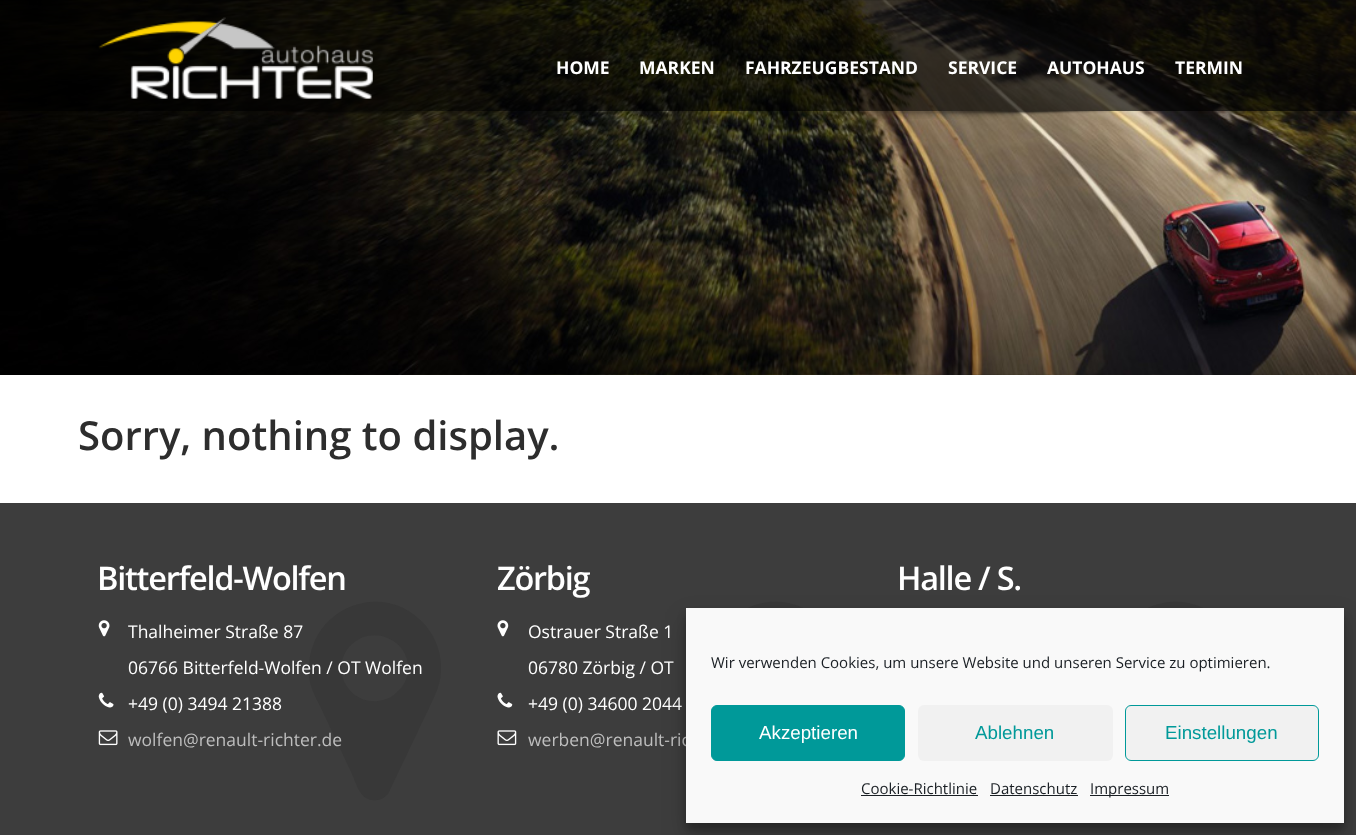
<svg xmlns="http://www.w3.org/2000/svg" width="1356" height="835">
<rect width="100%" height="100%" fill="#fff"/>
<image x="0" y="0" width="1356" height="375" href="media/1.png"/>
<rect width="1356" height="111" fill="#000000a6"/>
<image x="98" y="17" width="275" height="82" href="media/2.png"/>
<text x="556" y="74" style="font-family:Open Sans;font-size:17.5px;font-weight:bold;fill:#fff">HOME</text>
<text x="639" y="74" style="font-family:Open Sans;font-size:17.5px;font-weight:bold;fill:#fff">MARKEN</text>
<text x="745" y="74" style="font-family:Open Sans;font-size:17.5px;font-weight:bold;fill:#fff">FAHRZEUGBESTAND</text>
<text x="948" y="74" style="font-family:Open Sans;font-size:17.5px;font-weight:bold;fill:#fff">SERVICE</text>
<text x="1047" y="74" style="font-family:Open Sans;font-size:17.5px;font-weight:bold;fill:#fff">AUTOHAUS</text>
<text x="1175" y="74" style="font-family:Open Sans;font-size:17.5px;font-weight:bold;fill:#fff">TERMIN</text>
<image x="274" y="111" width="867" height="8" href="media/3.png"/>
<text x="78" y="450" style="font-family:Open Sans;font-size:40px;font-weight:600;fill:#2d2d2d">Sorry, nothing to display.</text>
<rect y="503" width="1356" height="332" fill="#3d3d3d"/>
<text x="97" y="590" style="font-family:Open Sans;font-size:32.5px;font-weight:600;letter-spacing:-1.25px;fill:#fff">Bitterfeld-Wolfen</text>
<path d="M398 691c6-5 9-12 10-20c3-30-35-48-57-26c-22 22-4 59 27 56c8-1 15-4 20-10zm43-23c0 16-5 25-12 40l-41 86c-3 3-7 6-11 6c-16 2-20-14-25-26l-31-66c-7-14-13-24-12-40c1-62 77-90 117-42c10 12 15 27 15 42z" fill="#383838"/>
<image x="98" y="620" width="12" height="17" href="media/4.png"/>
<text x="128" y="638" style="font-family:Open Sans;font-size:17.5px;fill:#fff">Thalheimer Straße 87</text>
<text x="128" y="674" style="font-family:Open Sans;font-size:17.5px;fill:#fff">06766 Bitterfeld-Wolfen / OT Wolfen</text>
<image x="98" y="692" width="16" height="16" href="media/5.png"/>
<text x="128" y="710" style="font-family:Open Sans;font-size:17.5px;fill:#fff">+49 (0) 3494 21388</text>
<image x="98" y="730" width="20" height="16" href="media/6.png"/>
<text x="128" y="746" style="font-family:Open Sans;font-size:17.5px;fill:#bebebe">wolfen@renault-richter.de</text>
<text x="497" y="590" style="font-family:Open Sans;font-size:32.5px;font-weight:600;letter-spacing:-1.25px;fill:#fff">Zörbig</text>
<image x="497" y="620" width="12" height="17" href="media/7.png"/>
<text x="528" y="638" style="font-family:Open Sans;font-size:17.5px;fill:#fff">Ostrauer Straße 1</text>
<text x="528" y="674" style="font-family:Open Sans;font-size:17.5px;fill:#fff">06780 Zörbig / OT</text>
<image x="497" y="692" width="16" height="16" href="media/8.png"/>
<text x="528" y="710" style="font-family:Open Sans;font-size:17.5px;fill:#fff">+49 (0) 34600 2044</text>
<image x="497" y="730" width="20" height="16" href="media/9.png"/>
<text x="528" y="746" style="font-family:Open Sans;font-size:17.5px;fill:#bebebe">werben@renault-ric</text>
<path d="M798 691c6-5 9-12 10-20c3-30-35-48-57-26c-5 5-8 12-9 20c-3 30 34 48 56 26zm43-23c0 16-5 25-12 40l-41 86c-3 3-7 6-11 6c-16 2-20-14-25-26l-31-66c-7-14-13-24-12-40c1-62 77-90 117-42c10 12 15 27 15 42z" fill="#383838"/>
<text x="897" y="590" style="font-family:Open Sans;font-size:32.5px;font-weight:600;letter-spacing:-1.25px;fill:#fff">Halle / S.</text>
<path d="M1198 691c22-21 4-59-27-56c-7 1-14 4-20 10c-5 5-8 12-9 20c-3 30 34 48 56 26zm43-23c0 16-5 25-12 40l-41 86c-3 3-7 6-11 6c-16 2-20-14-25-26l-31-66c-7-14-13-24-12-40c1-62 77-90 117-42c10 12 15 27 15 42z" fill="#383838"/>
<rect x="686" y="615" width="658" height="215" fill="#0000003b" filter="blur(4px)"/>
<rect x="686" y="620" width="658" height="215" fill="#00000030" filter="blur(12.5px)"/>
<rect x="686" y="608" width="658" height="215" fill="#f9f9f9"/>
<text x="711" y="668" style="font-family:Open Sans;font-size:15px;fill:#191e23">Wir verwenden Cookies, um unsere Website und unseren Service zu optimieren.</text>
<rect x="711.5" y="705.5" width="193" height="55" rx="5.5" fill="#099" stroke="#099"/>
<text x="759" y="739" style="font-family:Liberation Sans;font-size:18.75px;fill:#fff">Akzeptieren</text>
<rect x="918" y="705" width="195" height="56" rx="6" fill="#f1f1f1"/>
<text x="975" y="739" style="font-family:Liberation Sans;font-size:18.75px;fill:#099">Ablehnen</text>
<rect x="1125.5" y="705.5" width="193" height="55" rx="5.5" fill="#f1f1f1" stroke="#099"/>
<text x="1165" y="739" style="font-family:Liberation Sans;font-size:18.75px;fill:#099">Einstellungen</text>
<text x="861" y="794" style="font-family:Open Sans;font-size:15px;fill:#191e23">Cookie-Richtlinie</text>
<rect x="861" y="795" width="117" height="1" fill="#191e23"/>
<text x="990" y="794" style="font-family:Open Sans;font-size:15px;fill:#191e23">Datenschutz</text>
<rect x="990" y="795" width="88" height="1" fill="#191e23"/>
<rect x="1090" y="795" width="79" height="1" fill="#191e23"/>
<text x="1090" y="794" style="font-family:Open Sans;font-size:15px;fill:#191e23">Impressum</text>
</svg>
